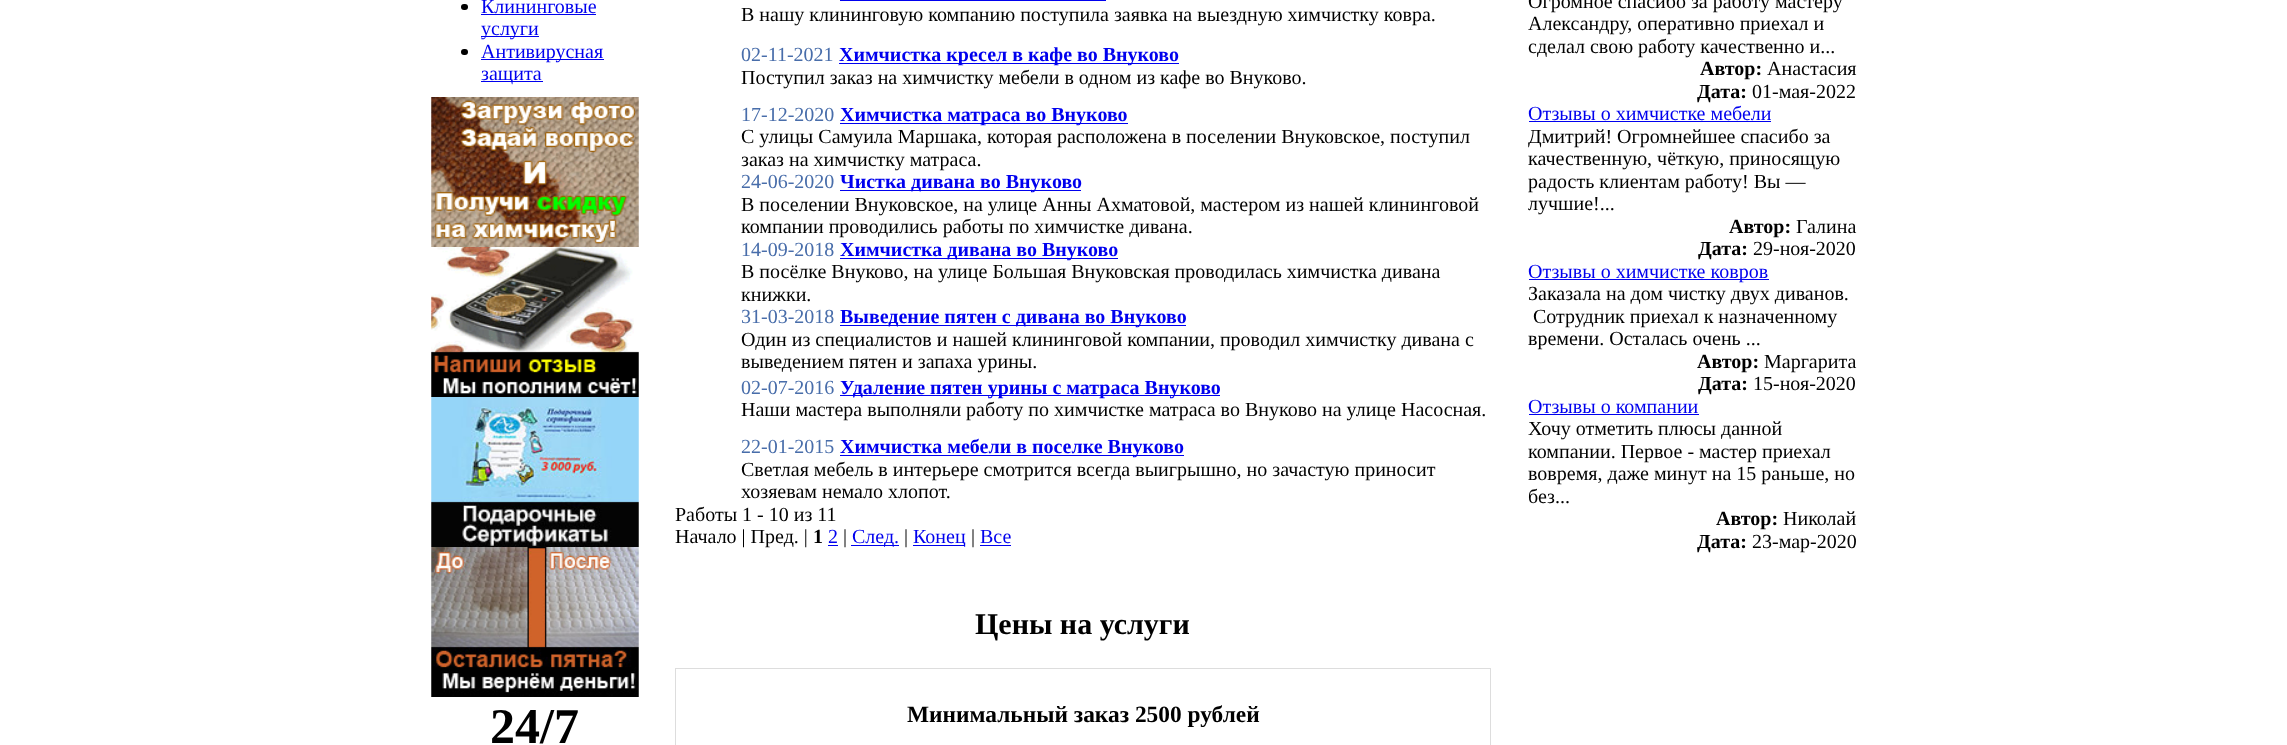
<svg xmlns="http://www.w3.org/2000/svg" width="2287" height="745">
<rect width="100%" height="100%" fill="#fff"/>
<rect x="461" y="4" width="7" height="6" rx="3" fill="#000"/>
<text x="481" y="13" style="font-family:Liberation Serif;font-size:20px;fill:#00e">Клининговые</text>
<rect x="481" y="14" width="115" height="1" fill="#00e"/>
<rect x="481" y="36" width="58" height="1" fill="#00e"/>
<text x="481" y="35" style="font-family:Liberation Serif;font-size:20px;fill:#00e">услуги</text>
<rect x="461" y="49" width="7" height="6" rx="3" fill="#000"/>
<rect x="481" y="59" width="123" height="1" fill="#00e"/>
<text x="481" y="58" style="font-family:Liberation Serif;font-size:20px;fill:#00e">Антивирусная</text>
<rect x="481" y="81" width="62" height="1" fill="#00e"/>
<text x="481" y="80" style="font-family:Liberation Serif;font-size:20px;fill:#00e">защита</text>
<image x="431" y="97" width="208" height="150" href="media/1.png"/>
<image x="431" y="247" width="208" height="150" href="media/2.png"/>
<image x="431" y="397" width="208" height="150" href="media/3.png"/>
<image x="431" y="547" width="208" height="150" href="media/4.png"/>
<text x="490" y="743" style="font-family:Liberation Serif;font-size:50px;font-weight:bold;fill:#000">24/7</text>
<rect x="840" width="266" height="1" fill="#00e"/>
<text x="741" y="21" style="font-family:Liberation Serif;font-size:20px;fill:#000">В нашу клининговую компанию поступила заявка на выездную химчистку ковра.</text>
<text x="741" y="61" style="font-family:Liberation Serif;font-size:20px;fill:#486daa">02-11-2021</text>
<rect x="839" y="63" width="340" height="1" fill="#00e"/>
<text x="839" y="61" style="font-family:Liberation Serif;font-size:20px;font-weight:bold;fill:#00e">Химчистка кресел в кафе во Внуково</text>
<text x="741" y="84" style="font-family:Liberation Serif;font-size:20px;fill:#000">Поступил заказ на химчистку мебели в одном из кафе во Внуково.</text>
<text x="741" y="121" style="font-family:Liberation Serif;font-size:20px;fill:#486daa">17-12-2020</text>
<rect x="840" y="123" width="288" height="1" fill="#00e"/>
<text x="840" y="121" style="font-family:Liberation Serif;font-size:20px;font-weight:bold;fill:#00e">Химчистка матраса во Внуково</text>
<text x="741" y="143" style="font-family:Liberation Serif;font-size:20px;fill:#000">С улицы Самуила Маршака, которая расположена в поселении Внуковское, поступил</text>
<text x="741" y="166" style="font-family:Liberation Serif;font-size:20px;fill:#000">заказ на химчистку матраса.</text>
<text x="741" y="188" style="font-family:Liberation Serif;font-size:20px;fill:#486daa">24-06-2020</text>
<rect x="840" y="190" width="241" height="1" fill="#00e"/>
<text x="840" y="188" style="font-family:Liberation Serif;font-size:20px;font-weight:bold;fill:#00e">Чистка дивана во Внуково</text>
<text x="741" y="211" style="font-family:Liberation Serif;font-size:20px;fill:#000">В поселении Внуковское, на улице Анны Ахматовой, мастером из нашей клининговой</text>
<text x="741" y="233" style="font-family:Liberation Serif;font-size:20px;fill:#000">компании проводились работы по химчистке дивана.</text>
<text x="741" y="256" style="font-family:Liberation Serif;font-size:20px;fill:#486daa">14-09-2018</text>
<rect x="840" y="258" width="278" height="1" fill="#00e"/>
<text x="840" y="256" style="font-family:Liberation Serif;font-size:20px;font-weight:bold;fill:#00e">Химчистка дивана во Внуково</text>
<text x="741" y="278" style="font-family:Liberation Serif;font-size:20px;fill:#000">В посёлке Внуково, на улице Большая Внуковская проводилась химчистка дивана</text>
<text x="741" y="301" style="font-family:Liberation Serif;font-size:20px;fill:#000">книжки.</text>
<text x="741" y="323" style="font-family:Liberation Serif;font-size:20px;fill:#486daa">31-03-2018</text>
<rect x="840" y="325" width="346" height="1" fill="#00e"/>
<text x="840" y="323" style="font-family:Liberation Serif;font-size:20px;font-weight:bold;fill:#00e">Выведение пятен с дивана во Внуково</text>
<text x="741" y="346" style="font-family:Liberation Serif;font-size:20px;fill:#000">Один из специалистов и нашей клининговой компании, проводил химчистку дивана с</text>
<text x="741" y="368" style="font-family:Liberation Serif;font-size:20px;fill:#000">выведением пятен и запаха урины.</text>
<text x="741" y="394" style="font-family:Liberation Serif;font-size:20px;fill:#486daa">02-07-2016</text>
<rect x="840" y="395" width="380" height="1" fill="#00e"/>
<text x="840" y="394" style="font-family:Liberation Serif;font-size:20px;font-weight:bold;fill:#00e">Удаление пятен урины с матраса Внуково</text>
<text x="741" y="416" style="font-family:Liberation Serif;font-size:20px;fill:#000">Наши мастера выполняли работу по химчистке матраса во Внуково на улице Насосная.</text>
<text x="741" y="453" style="font-family:Liberation Serif;font-size:20px;fill:#486daa">22-01-2015</text>
<rect x="840" y="455" width="344" height="1" fill="#00e"/>
<text x="840" y="453" style="font-family:Liberation Serif;font-size:20px;font-weight:bold;fill:#00e">Химчистка мебели в поселке Внуково</text>
<text x="741" y="476" style="font-family:Liberation Serif;font-size:20px;fill:#000">Светлая мебель в интерьере смотрится всегда выигрышно, но зачастую приносит</text>
<text x="741" y="498" style="font-family:Liberation Serif;font-size:20px;fill:#000">хозяевам немало хлопот.</text>
<text x="675" y="521" style="font-family:Liberation Serif;font-size:20px;fill:#000">Работы 1 - 10 из 11</text>
<text x="675" y="543" style="font-family:Liberation Serif;font-size:20px;fill:#000">Начало | Пред. |</text>
<text x="813" y="543" style="font-family:Liberation Serif;font-size:20px;font-weight:bold;fill:#000">1</text>
<text x="828" y="543" style="font-family:Liberation Serif;font-size:20px;fill:#00e">2</text>
<rect x="828" y="545" width="10" height="1" fill="#00e"/>
<text x="843" y="543" style="font-family:Liberation Serif;font-size:20px;fill:#000">|</text>
<rect x="851" y="545" width="48" height="1" fill="#00e"/>
<text x="852" y="543" style="font-family:Liberation Serif;font-size:20px;fill:#00e">След.</text>
<text x="904" y="543" style="font-family:Liberation Serif;font-size:20px;fill:#000">|</text>
<rect x="913" y="545" width="52" height="1" fill="#00e"/>
<text x="913" y="543" style="font-family:Liberation Serif;font-size:20px;fill:#00e">Конец</text>
<text x="971" y="543" style="font-family:Liberation Serif;font-size:20px;fill:#000">|</text>
<text x="980" y="543" style="font-family:Liberation Serif;font-size:20px;fill:#00e">Все</text>
<rect x="980" y="545" width="31" height="1" fill="#00e"/>
<text x="975" y="634" style="font-family:Liberation Serif;font-size:30px;font-weight:bold;fill:#000">Цены на услуги</text>
<rect x="675" y="668" width="816" height="1" fill="#ddd"/>
<rect x="1490" y="668" width="1" height="77" fill="#ddd"/>
<rect x="675" y="668" width="1" height="77" fill="#ddd"/>
<text x="907" y="722" style="font-family:Liberation Serif;font-size:23.4px;font-weight:bold;fill:#000">Минимальный заказ 2500 рублей</text>
<text x="1528" y="8" style="font-family:Liberation Serif;font-size:20px;fill:#000">Огромное спасибо за работу мастеру</text>
<text x="1528" y="30" style="font-family:Liberation Serif;font-size:20px;fill:#000">Александру, оперативно приехал и</text>
<text x="1528" y="53" style="font-family:Liberation Serif;font-size:20px;fill:#000">сделал свою работу качественно и...</text>
<text x="1700" y="75" style="font-family:Liberation Serif;font-size:20px;font-weight:bold;fill:#000">Автор:</text>
<text x="1767" y="75" style="font-family:Liberation Serif;font-size:20px;fill:#000">Анастасия</text>
<text x="1697" y="98" style="font-family:Liberation Serif;font-size:20px;font-weight:bold;fill:#000">Дата:</text>
<text x="1752" y="98" style="font-family:Liberation Serif;font-size:20px;fill:#000">01-мая-2022</text>
<text x="1528" y="120" style="font-family:Liberation Serif;font-size:20px;fill:#00e">Отзывы о химчистке мебели</text>
<rect x="1529" y="121" width="242" height="1" fill="#00e"/>
<text x="1528" y="143" style="font-family:Liberation Serif;font-size:20px;fill:#000">Дмитрий! Огромнейшее спасибо за</text>
<text x="1528" y="165" style="font-family:Liberation Serif;font-size:20px;fill:#000">качественную, чёткую, приносящую</text>
<text x="1528" y="188" style="font-family:Liberation Serif;font-size:20px;fill:#000">радость клиентам работу! Вы —</text>
<text x="1528" y="210" style="font-family:Liberation Serif;font-size:20px;fill:#000">лучшие!...</text>
<text x="1729" y="233" style="font-family:Liberation Serif;font-size:20px;font-weight:bold;fill:#000">Автор:</text>
<text x="1796" y="233" style="font-family:Liberation Serif;font-size:20px;fill:#000">Галина</text>
<text x="1698" y="255" style="font-family:Liberation Serif;font-size:20px;font-weight:bold;fill:#000">Дата:</text>
<text x="1753" y="255" style="font-family:Liberation Serif;font-size:20px;fill:#000">29-ноя-2020</text>
<rect x="1529" y="279" width="240" height="1" fill="#00e"/>
<text x="1528" y="278" style="font-family:Liberation Serif;font-size:20px;fill:#00e">Отзывы о химчистке ковров</text>
<text x="1528" y="300" style="font-family:Liberation Serif;font-size:20px;fill:#000">Заказала на дом чистку двух диванов.</text>
<text x="1533" y="323" style="font-family:Liberation Serif;font-size:20px;fill:#000">Сотрудник приехал к назначенному</text>
<text x="1528" y="345" style="font-family:Liberation Serif;font-size:20px;fill:#000">времени. Осталась очень ...</text>
<text x="1697" y="368" style="font-family:Liberation Serif;font-size:20px;font-weight:bold;fill:#000">Автор:</text>
<text x="1764" y="368" style="font-family:Liberation Serif;font-size:20px;fill:#000">Маргарита</text>
<text x="1698" y="390" style="font-family:Liberation Serif;font-size:20px;font-weight:bold;fill:#000">Дата:</text>
<text x="1753" y="390" style="font-family:Liberation Serif;font-size:20px;fill:#000">15-ноя-2020</text>
<text x="1528" y="413" style="font-family:Liberation Serif;font-size:20px;fill:#00e">Отзывы о компании</text>
<rect x="1529" y="414" width="170" height="1" fill="#00e"/>
<text x="1528" y="435" style="font-family:Liberation Serif;font-size:20px;fill:#000">Хочу отметить плюсы данной</text>
<text x="1528" y="458" style="font-family:Liberation Serif;font-size:20px;fill:#000">компании. Первое - мастер приехал</text>
<text x="1528" y="480" style="font-family:Liberation Serif;font-size:20px;fill:#000">вовремя, даже минут на 15 раньше, но</text>
<text x="1528" y="503" style="font-family:Liberation Serif;font-size:20px;fill:#000">без...</text>
<text x="1716" y="525" style="font-family:Liberation Serif;font-size:20px;font-weight:bold;fill:#000">Автор:</text>
<text x="1783" y="525" style="font-family:Liberation Serif;font-size:20px;fill:#000">Николай</text>
<text x="1697" y="548" style="font-family:Liberation Serif;font-size:20px;font-weight:bold;fill:#000">Дата:</text>
<text x="1752" y="548" style="font-family:Liberation Serif;font-size:20px;fill:#000">23-мар-2020</text>
</svg>
